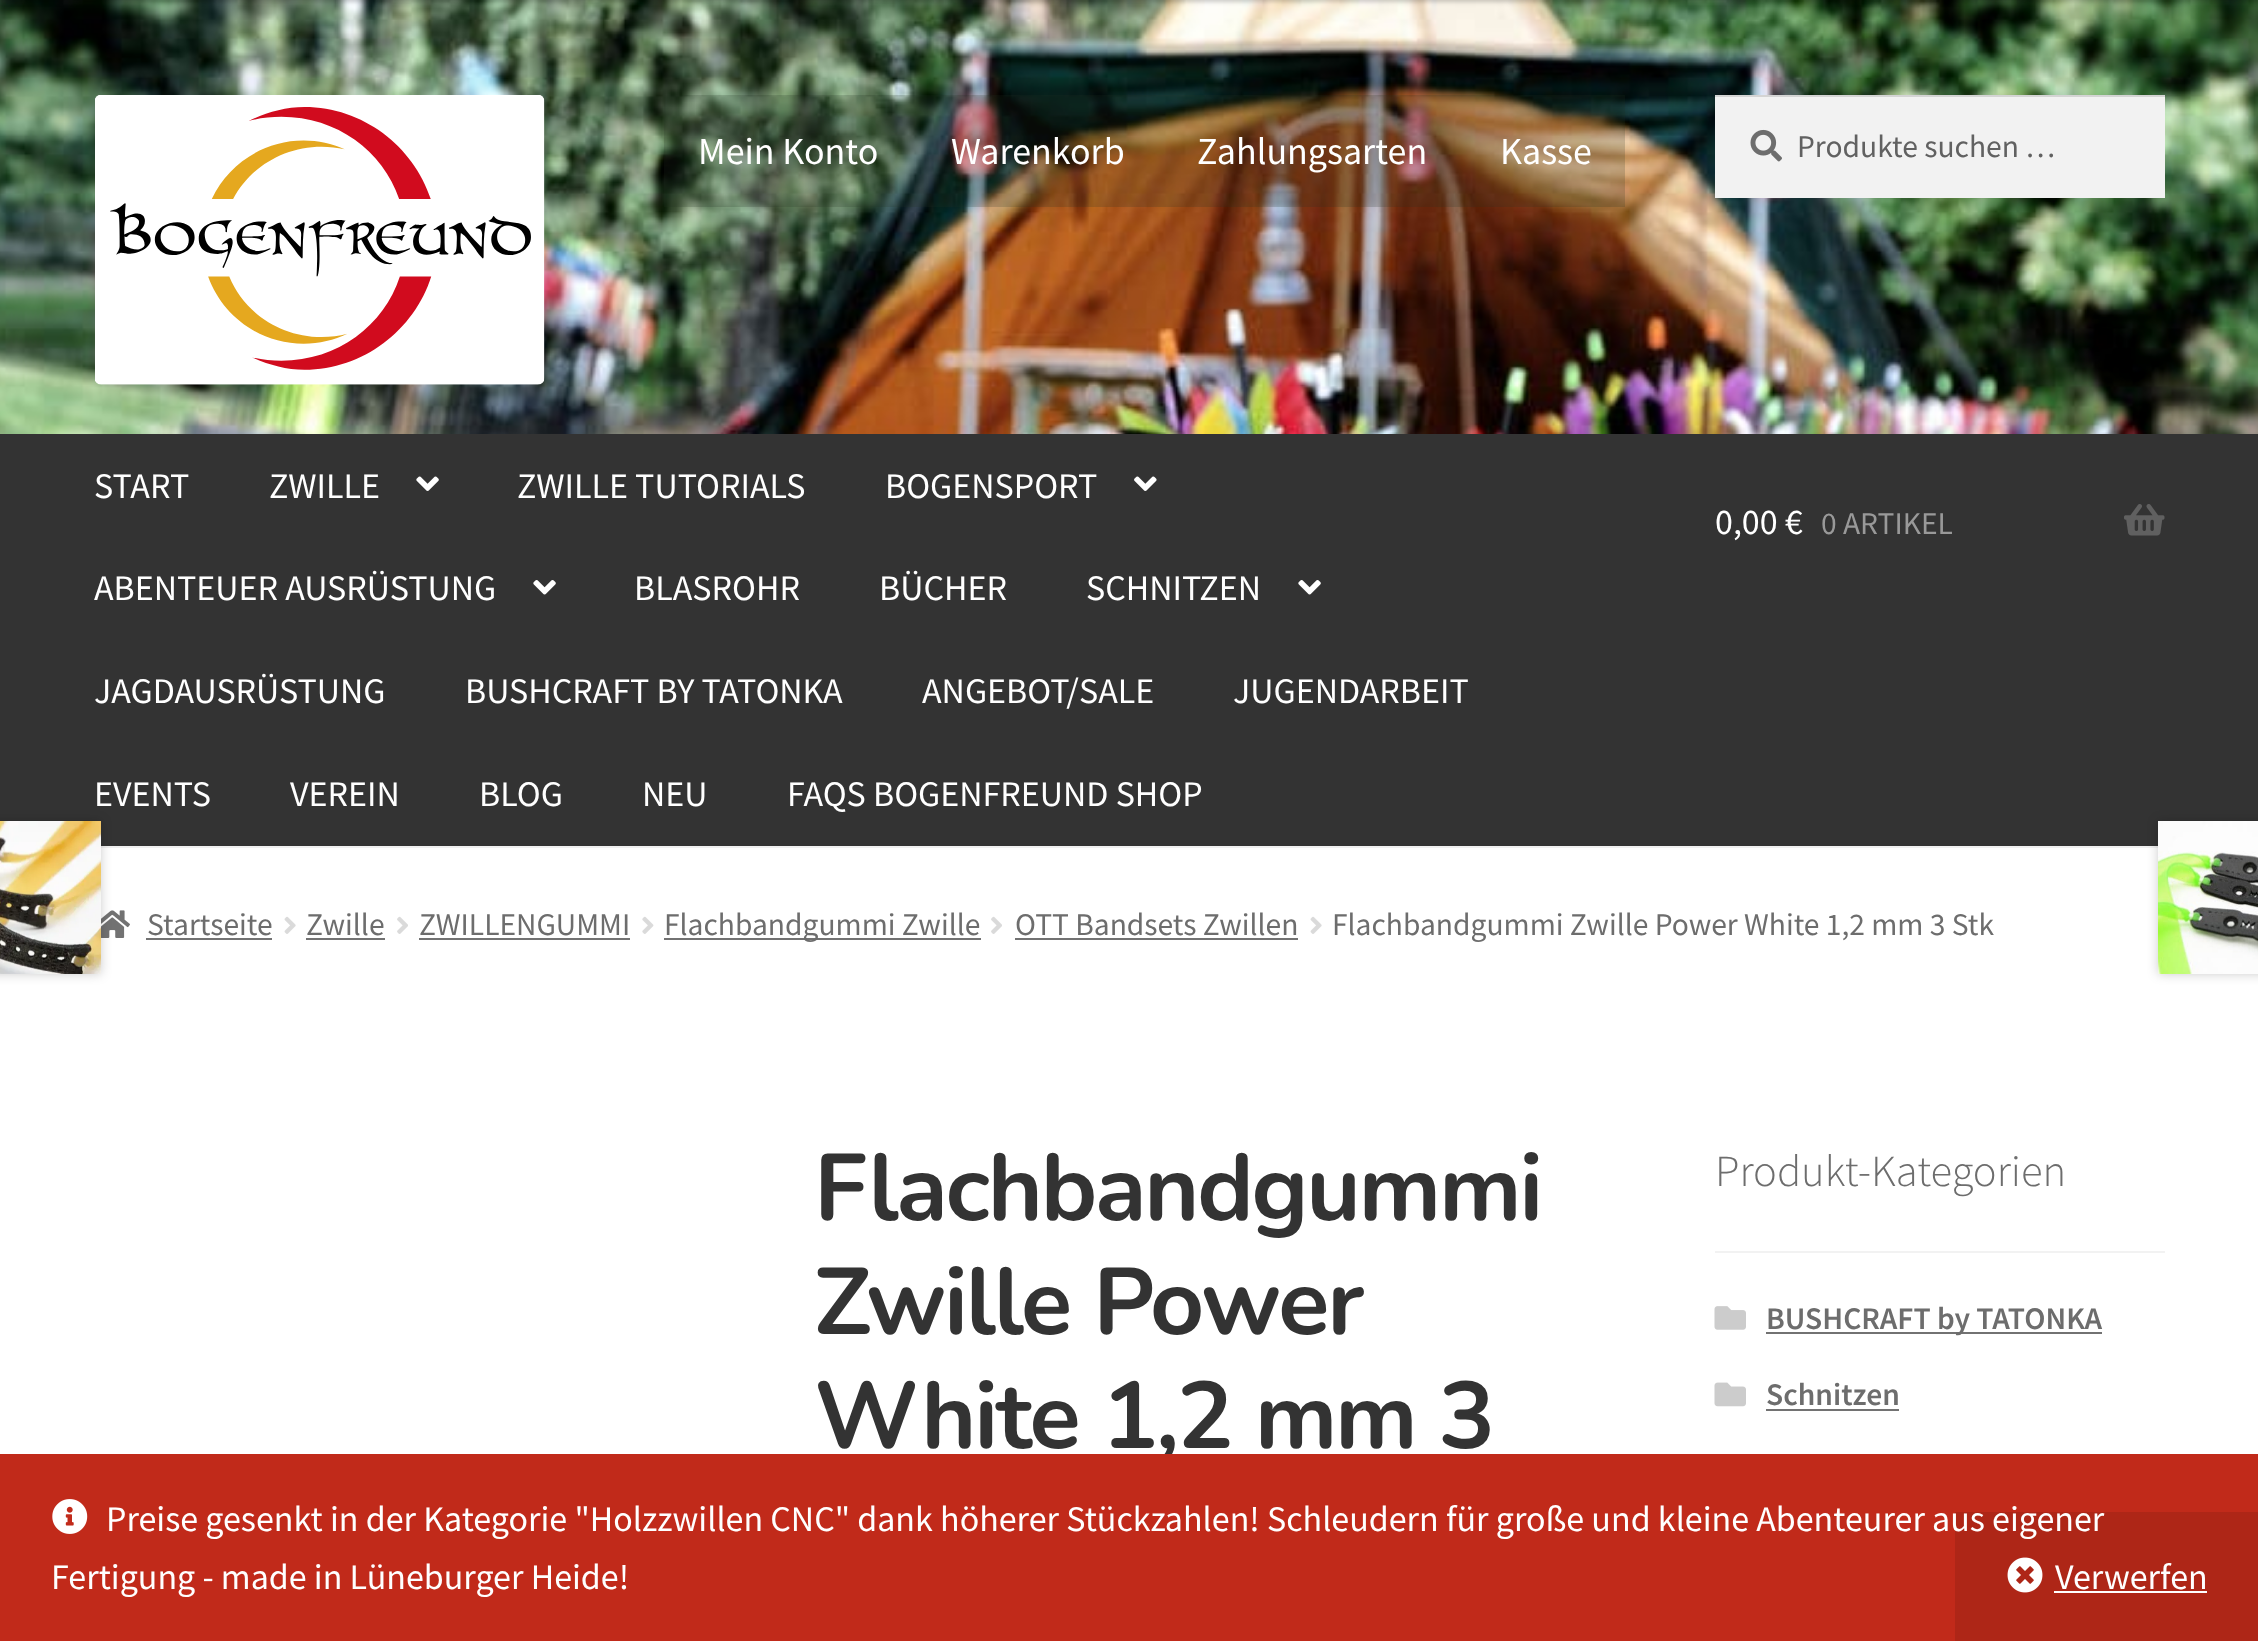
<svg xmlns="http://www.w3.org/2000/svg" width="2258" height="1641">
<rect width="100%" height="100%" fill="#fff"/>
<image x="0" y="0" width="2258" height="434" href="media/1.png"/>
<rect y="-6" width="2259" height="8" fill="#00000033" filter="blur(2px)"/>
<rect x="101" y="846" width="2057" height="2" fill="#f0f0f0"/>
<image x="95" y="95" width="450" height="290" href="media/2.png"/>
<rect x="664" y="95" width="961" height="112" fill="#22332233"/>
<text x="698" y="164" style="font-family:Source Sans Pro;font-size:38px;fill:#fff">Mein Konto</text>
<text x="951" y="164" style="font-family:Source Sans Pro;font-size:38px;fill:#fff">Warenkorb</text>
<text x="1197" y="164" style="font-family:Source Sans Pro;font-size:38px;fill:#fff">Zahlungsarten</text>
<text x="1500" y="164" style="font-family:Source Sans Pro;font-size:38px;fill:#fff">Kasse</text>
<rect x="1715" y="97" width="450" height="101" fill="#f2f2f2"/>
<image x="1750" y="129" width="32" height="33" href="media/3.png"/>
<rect x="1715" y="95" width="450" height="2" fill="#d4d4d4"/>
<text x="1797" y="157" style="font-family:Source Sans Pro;font-size:31.5px;fill:#616161">Produkte suchen …</text>
<rect y="434" width="2258" height="412" fill="#333"/>
<text x="94" y="498" style="font-family:Source Sans Pro;font-size:36px;fill:#fff">START</text>
<text x="269" y="498" style="font-family:Source Sans Pro;font-size:36px;fill:#fff">ZWILLE</text>
<image x="416" y="476" width="23" height="15" href="media/4.png"/>
<text x="517" y="498" style="font-family:Source Sans Pro;font-size:36px;fill:#fff">ZWILLE TUTORIALS</text>
<text x="885" y="498" style="font-family:Source Sans Pro;font-size:36px;fill:#fff">BOGENSPORT</text>
<image x="1134" y="476" width="23" height="15" href="media/5.png"/>
<text x="94" y="600" style="font-family:Source Sans Pro;font-size:36px;fill:#fff">ABENTEUER AUSRÜSTUNG</text>
<image x="533" y="580" width="23" height="15" href="media/6.png"/>
<text x="634" y="600" style="font-family:Source Sans Pro;font-size:36px;fill:#fff">BLASROHR</text>
<text x="879" y="600" style="font-family:Source Sans Pro;font-size:36px;fill:#fff">BÜCHER</text>
<text x="1086" y="600" style="font-family:Source Sans Pro;font-size:36px;fill:#fff">SCHNITZEN</text>
<image x="1298" y="580" width="23" height="15" href="media/6.png"/>
<text x="94" y="703" style="font-family:Source Sans Pro;font-size:36px;fill:#fff">JAGDAUSRÜSTUNG</text>
<text x="465" y="703" style="font-family:Source Sans Pro;font-size:36px;fill:#fff">BUSHCRAFT BY TATONKA</text>
<text x="922" y="703" style="font-family:Source Sans Pro;font-size:36px;fill:#fff">ANGEBOT/SALE</text>
<text x="1233" y="703" style="font-family:Source Sans Pro;font-size:36px;fill:#fff">JUGENDARBEIT</text>
<text x="94" y="806" style="font-family:Source Sans Pro;font-size:36px;fill:#fff">EVENTS</text>
<text x="290" y="806" style="font-family:Source Sans Pro;font-size:36px;fill:#fff">VEREIN</text>
<text x="479" y="806" style="font-family:Source Sans Pro;font-size:36px;fill:#fff">BLOG</text>
<text x="642" y="806" style="font-family:Source Sans Pro;font-size:36px;fill:#fff">NEU</text>
<text x="787" y="806" style="font-family:Source Sans Pro;font-size:36px;fill:#fff">FAQS BOGENFREUND SHOP</text>
<text x="1715" y="534" style="font-family:Source Sans Pro;font-size:36px;fill:#fff">0,00 €</text>
<text x="1821" y="534" style="font-family:Source Sans Pro;font-size:31.5px;fill:#999">0 ARTIKEL</text>
<image x="2124" y="504" width="41" height="32" href="media/7.png"/>
<image x="101" y="910" width="29" height="28" href="media/8.png"/>
<text x="147" y="935" style="font-family:Source Sans Pro;font-size:31.5px;fill:#6d6d6d">Startseite</text>
<rect x="146" y="938" width="126" height="2" fill="#727272"/>
<image x="284" y="916" width="12" height="18" href="media/9.png"/>
<text x="306" y="935" style="font-family:Source Sans Pro;font-size:31.5px;fill:#6d6d6d">Zwille</text>
<rect x="306" y="938" width="79" height="2" fill="#727272"/>
<image x="397" y="916" width="11" height="18" href="media/10.png"/>
<text x="419" y="935" style="font-family:Source Sans Pro;font-size:31.5px;fill:#6d6d6d">ZWILLENGUMMI</text>
<rect x="419" y="938" width="211" height="2" fill="#727272"/>
<image x="642" y="916" width="12" height="18" href="media/11.png"/>
<rect x="664" y="938" width="317" height="2" fill="#727272"/>
<text x="664" y="935" style="font-family:Source Sans Pro;font-size:31.5px;fill:#6d6d6d">Flachbandgummi Zwille</text>
<image x="991" y="916" width="11" height="18" href="media/10.png"/>
<text x="1015" y="935" style="font-family:Source Sans Pro;font-size:31.5px;fill:#6d6d6d">OTT Bandsets Zwillen</text>
<rect x="1015" y="938" width="283" height="2" fill="#727272"/>
<image x="1310" y="916" width="12" height="18" href="media/9.png"/>
<text x="1332" y="935" style="font-family:Source Sans Pro;font-size:31.5px;fill:#6d6d6d">Flachbandgummi Zwille Power White 1,2 mm 3 Stk</text>
<rect x="-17" y="821" width="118" height="153" fill="#00000033" filter="blur(5.5px)"/>
<image x="0" y="821" width="101" height="153" href="media/12.png"/>
<rect x="2158" y="821" width="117" height="153" fill="#00000033" filter="blur(5.5px)"/>
<image x="2158" y="821" width="100" height="153" href="media/13.png"/>
<text x="814" y="1220" style="font-family:Nunito;font-size:94.25px;font-weight:bold;letter-spacing:-2.25px;fill:#333">Flachbandgummi</text>
<text x="814" y="1334" style="font-family:Nunito;font-size:94.25px;font-weight:bold;letter-spacing:-2.25px;fill:#333">Zwille Power</text>
<text x="814" y="1448" style="font-family:Nunito;font-size:94.25px;font-weight:bold;letter-spacing:-2.25px;fill:#333">White 1,2 mm 3</text>
<rect x="1715" y="1251" width="450" height="2" fill="#f2f2f2"/>
<text x="1715" y="1186" style="font-family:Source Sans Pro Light;font-size:44.5px;font-weight:300;fill:#6d6d6d">Produkt-Kategorien</text>
<image x="1714" y="1306" width="32" height="24" href="media/14.png"/>
<rect x="1766" y="1332" width="336" height="2" fill="#727272"/>
<text x="1766" y="1329" style="font-family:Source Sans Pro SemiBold;font-size:31.5px;font-weight:600;fill:#6d6d6d">BUSHCRAFT by TATONKA</text>
<image x="1714" y="1382" width="32" height="25" href="media/15.png"/>
<text x="1766" y="1405" style="font-family:Source Sans Pro SemiBold;font-size:31.5px;font-weight:600;fill:#6d6d6d">Schnitzen</text>
<rect x="1766" y="1409" width="133" height="2" fill="#727272"/>
<rect y="1454" width="2258" height="187" fill="#c12a1a"/>
<image x="52" y="1499" width="36" height="35" href="media/16.png"/>
<rect x="1955" y="1512" width="303" height="129" fill="#ae2617"/>
<text x="106" y="1531" style="font-family:Source Sans Pro;font-size:36px;fill:#fff">Preise gesenkt in der Kategorie "Holzzwillen CNC" dank höherer Stückzahlen! Schleudern für große und kleine Abenteurer aus eigener</text>
<text x="51" y="1589" style="font-family:Source Sans Pro;font-size:36px;fill:#fff">Fertigung - made in Lüneburger Heide!</text>
<image x="2007" y="1557" width="36" height="36" href="media/17.png"/>
<text x="2055" y="1589" style="font-family:Source Sans Pro;font-size:36px;fill:#fff">Verwerfen</text>
<rect x="2054" y="1591" width="153" height="2" fill="#fff"/>
</svg>
